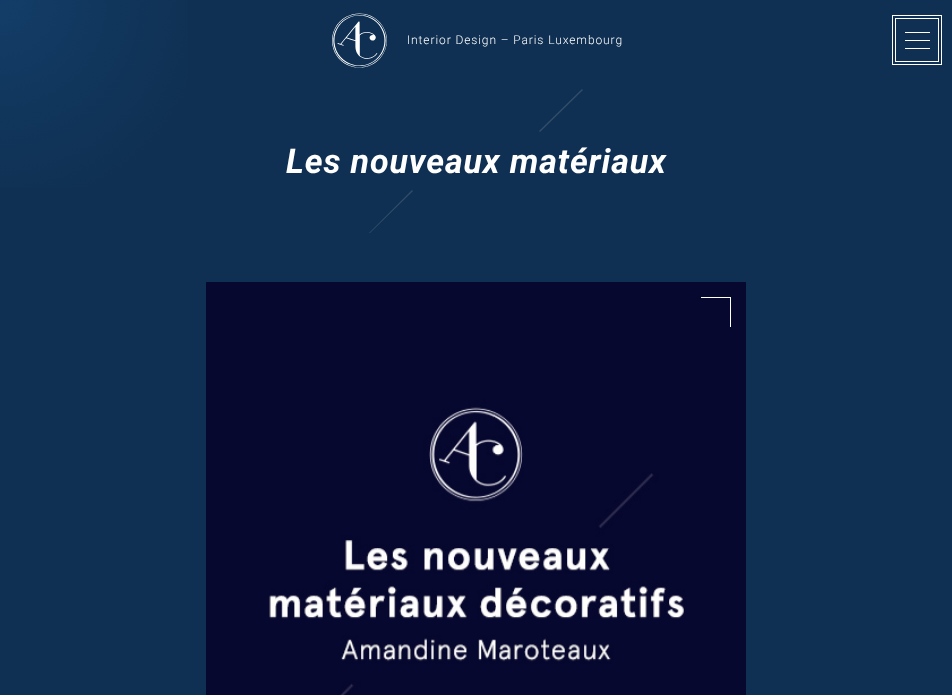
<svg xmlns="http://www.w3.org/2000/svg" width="952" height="695">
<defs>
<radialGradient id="g1" gradientUnits="userSpaceOnUse" cx="0" cy="0" r="424"><stop offset="0" stop-color="#133d68"/><stop offset="0.5" stop-color="#0f3052"/></radialGradient>
</defs>
<rect width="100%" height="100%" fill="#0f3052"/>
<image x="332" y="13" width="55" height="55" href="media/1.png"/>
<text x="407" y="44" style="font-family:Roboto;font-size:12px;font-weight:300;letter-spacing:0.9px;fill:#fff">Interior Design – Paris Luxembourg</text>
<rect x="892.5" y="15.5" width="49" height="49" fill="none" stroke="#fff"/>
<rect x="895.5" y="18.5" width="43" height="43" fill="none" stroke="#fff"/>
<rect x="905" y="40" width="25" height="1" fill="#fff"/>
<rect x="905" y="32" width="25" height="1" fill="#fff"/>
<rect x="905" y="48" width="25" height="1" fill="#fff"/>
<rect width="188" height="188" fill="url(#g1)"/>
<path d="M539 131l43-42l1 1l-43 42z" fill="#314d6a"/>
<text x="286" y="173" style="font-family:Roboto;font-size:34px;font-weight:bold;font-style:italic;letter-spacing:0.9px;fill:#fff">Les nouveaux matériaux</text>
<path d="M369 233l43-43l1 1l-43 42z" fill="#314d6a"/>
<image x="206" y="282" width="540" height="413" href="media/2.png"/>
<rect x="701" y="297" width="30" height="1" fill="#fff"/>
<rect x="730" y="297" width="1" height="30" fill="#fff"/>
</svg>
